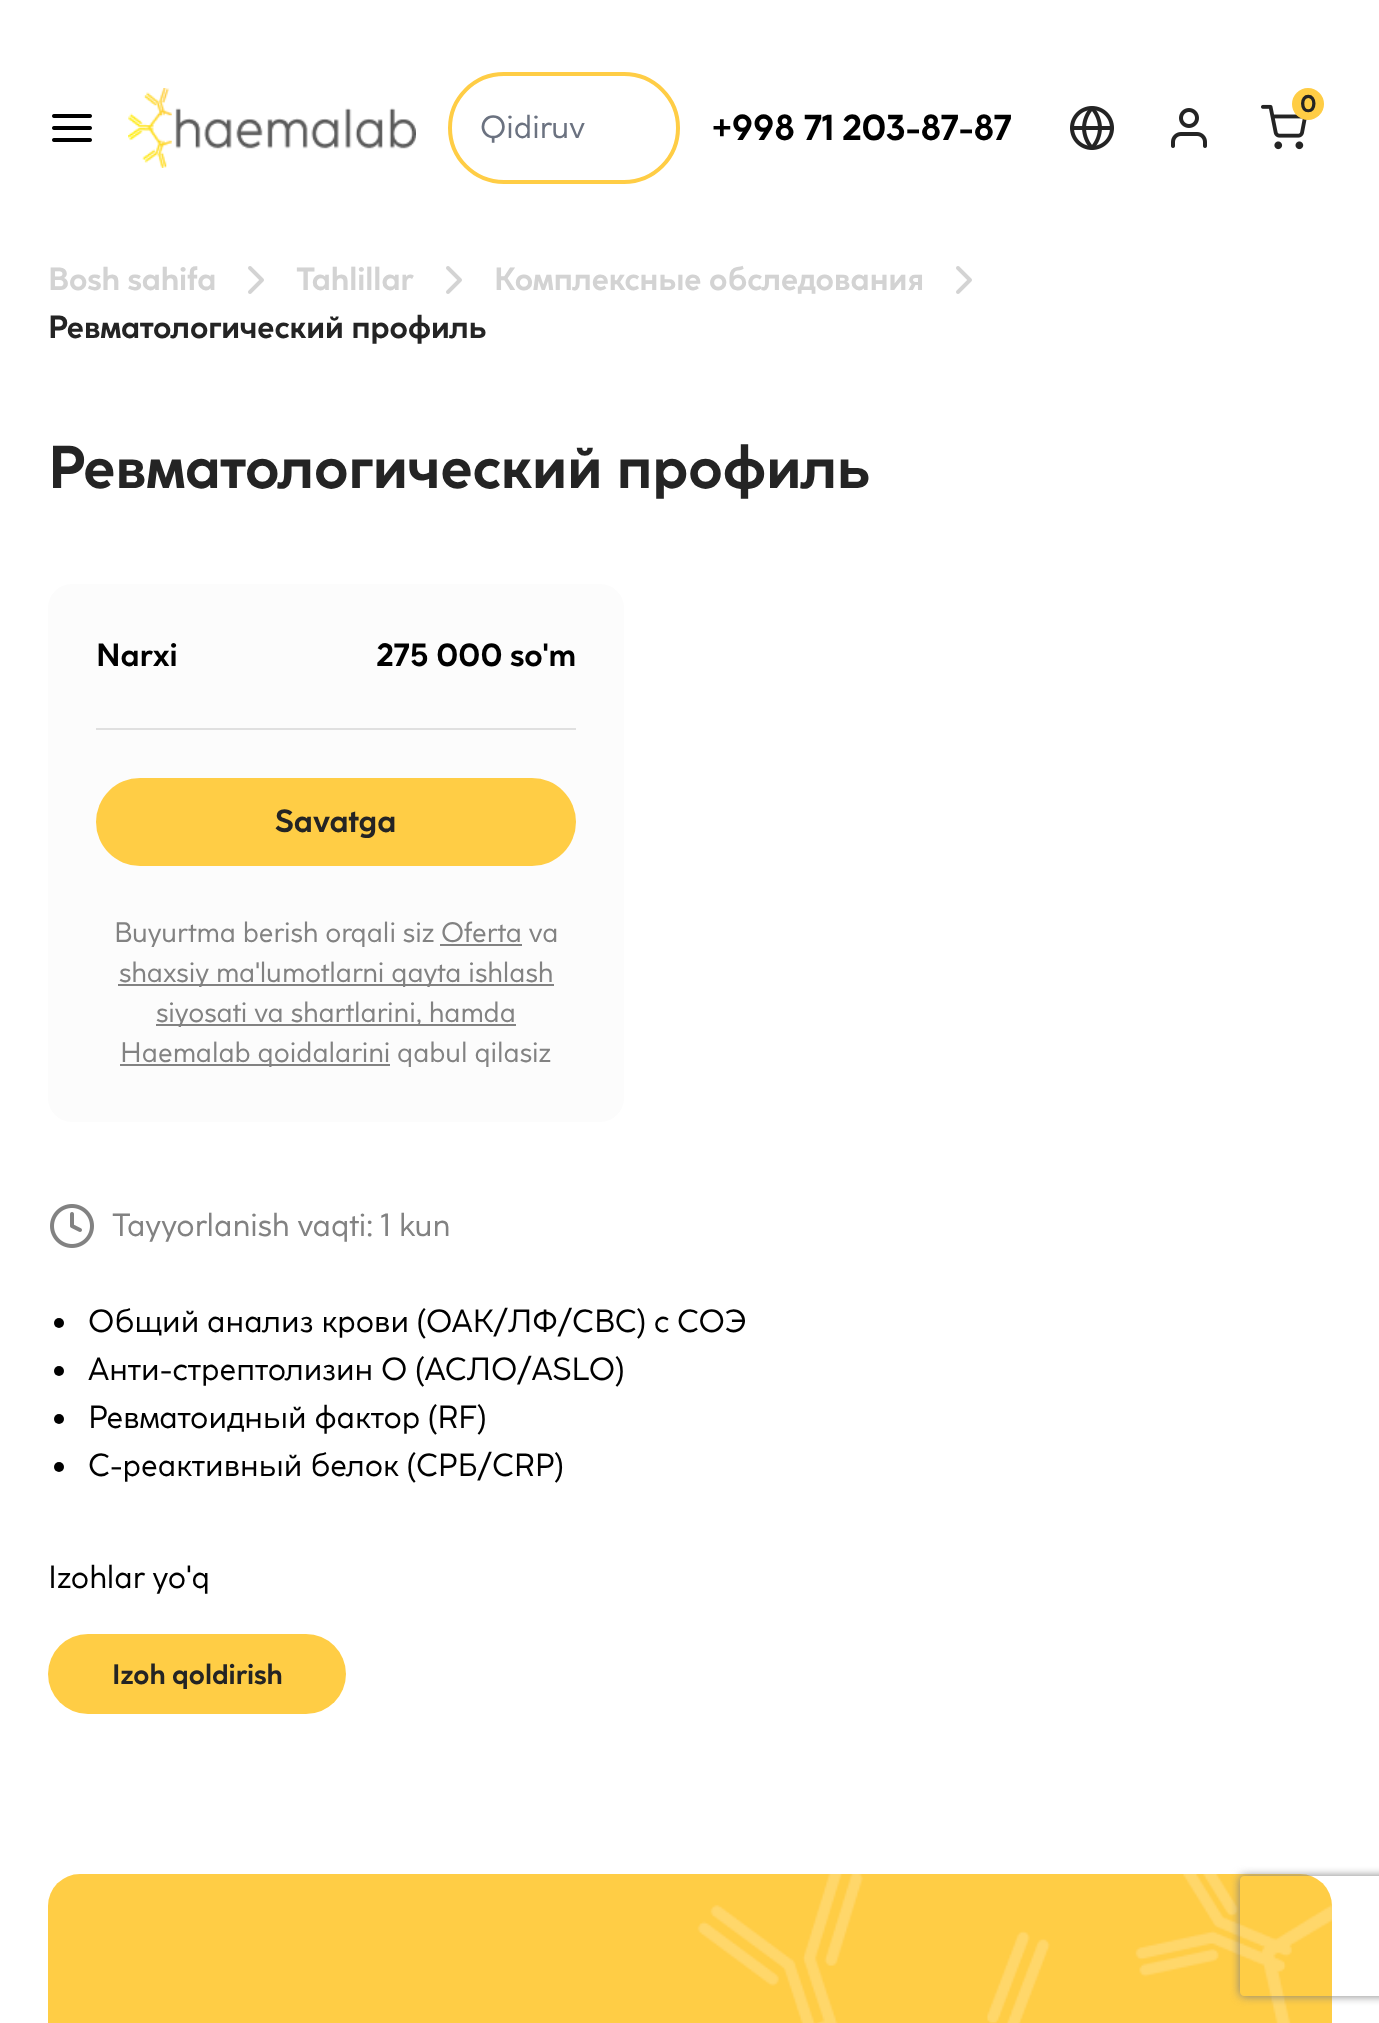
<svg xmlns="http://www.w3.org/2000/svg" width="1379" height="2023">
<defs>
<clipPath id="clip1"><path d="M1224 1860h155v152h-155zm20 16h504c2 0 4 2 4 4v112c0 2-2 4-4 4h-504c-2 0-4-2-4-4v-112c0-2 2-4 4-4z" clip-rule="evenodd"/></clipPath>
</defs>
<rect width="100%" height="100%" fill="#fff"/>
<image x="128" y="88" width="288" height="80" href="media/1.png"/>
<image x="1261" y="104" width="46" height="46" href="media/2.png"/>
<circle cx="1308" cy="104" r="16" fill="#ffcd45"/>
<text x="1300" y="112" style="font-family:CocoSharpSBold;font-size:24px;font-weight:bold;fill:#242424">0</text>
<image x="1070" y="106" width="44" height="44" href="media/3.png"/>
<image x="1171" y="108" width="36" height="40" href="media/4.png"/>
<image x="52" y="114" width="40" height="28" href="media/5.png"/>
<rect x="450" y="74" width="228" height="108" rx="54" fill="none" stroke="#ffcd45" stroke-width="4"/>
<text x="480" y="138" style="font-family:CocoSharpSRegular;font-size:32px;fill:#6b7280">Qidiruv</text>
<text x="712" y="140" style="font-family:CocoSharpSBold;font-size:36px;font-weight:bold;fill:#000">+998 71 203-87-87</text>
<text x="48" y="290" style="font-family:CocoSharpSBold;font-size:32px;font-weight:bold;fill:#d3d3d3">Bosh sahifa</text>
<image x="248" y="266" width="16" height="28" href="media/6.png"/>
<text x="296" y="290" style="font-family:CocoSharpSBold;font-size:32px;font-weight:bold;fill:#d3d3d3">Tahlillar</text>
<image x="446" y="266" width="16" height="28" href="media/6.png"/>
<text x="494" y="290" style="font-family:CocoSharpSBold;font-size:32px;font-weight:bold;fill:#d3d3d3">Комплексные обследования</text>
<image x="956" y="266" width="16" height="28" href="media/6.png"/>
<text x="48" y="338" style="font-family:CocoSharpSBold;font-size:32px;font-weight:bold;fill:#242424">Ревматологический профиль</text>
<text x="48" y="488" style="font-family:CocoSharpSBold;font-size:60px;font-weight:bold;fill:#242424">Ревматологический профиль</text>
<rect x="48" y="584" width="576" height="538" rx="24" fill="#fcfcfc"/>
<rect x="96" y="728" width="480" height="2" fill="#e0e0e0"/>
<text x="96" y="666" style="font-family:CocoSharpSBold;font-size:32px;font-weight:bold;fill:#000">Narxi</text>
<text x="377" y="666" style="font-family:CocoSharpSBold;font-size:32px;font-weight:bold;fill:#000">275 000 so'm</text>
<rect x="96" y="778" width="480" height="88" rx="44" fill="#ffcd45"/>
<text x="275" y="832" style="font-family:CocoSharpSBold;font-size:32px;font-weight:bold;fill:#242424">Savatga</text>
<text x="114" y="942" style="font-family:CocoSharpSRegular;font-size:28px;fill:#828282">Buyurtma berish orqali siz Oferta va</text>
<rect x="440" y="944" width="82" height="2" fill="#828282"/>
<rect x="118" y="984" width="436" height="2" fill="#828282"/>
<text x="119" y="982" style="font-family:CocoSharpSRegular;font-size:28px;fill:#828282">shaxsiy ma'lumotlarni qayta ishlash</text>
<rect x="156" y="1024" width="360" height="2" fill="#828282"/>
<text x="156" y="1022" style="font-family:CocoSharpSRegular;font-size:28px;fill:#828282">siyosati va shartlarini, hamda</text>
<rect x="120" y="1064" width="270" height="2" fill="#828282"/>
<text x="120" y="1062" style="font-family:CocoSharpSRegular;font-size:28px;fill:#828282">Haemalab qoidalarini qabul qilasiz</text>
<image x="50" y="1204" width="44" height="44" href="media/7.png"/>
<text x="112" y="1236" style="font-family:CocoSharpSRegular;font-size:32px;fill:#828282">Tayyorlanish vaqti: 1 kun</text>
<circle cx="59" cy="1323" r="5" fill="#000"/>
<text x="88" y="1332" style="font-family:CocoSharpSRegular;font-size:32px;fill:#000">Общий анализ крови (ОАК/ЛФ/CBC) с СОЭ</text>
<circle cx="59" cy="1371" r="5" fill="#000"/>
<text x="88" y="1380" style="font-family:CocoSharpSRegular;font-size:32px;fill:#000">Анти-стрептолизин О (АСЛО/ASLO)</text>
<circle cx="59" cy="1419" r="5" fill="#000"/>
<text x="88" y="1428" style="font-family:CocoSharpSRegular;font-size:32px;fill:#000">Ревматоидный фактор (RF)</text>
<circle cx="59" cy="1467" r="5" fill="#000"/>
<text x="88" y="1476" style="font-family:CocoSharpSRegular;font-size:32px;fill:#000">С-реактивный белок (СРБ/CRP)</text>
<text x="48" y="1588" style="font-family:CocoSharpSRegular;font-size:32px;fill:#000">Izohlar yo'q</text>
<rect x="48" y="1634" width="298" height="80" rx="40" fill="#ffcd45"/>
<text x="112" y="1684" style="font-family:CocoSharpSBold;font-size:28px;font-weight:bold;fill:#242424">Izoh qoldirish</text>
<rect x="48" y="1874" width="1284" height="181" rx="32" fill="#ffcd45"/>
<image x="697" y="1874" width="635" height="149" href="media/8.png"/>
<g clip-path="url(#clip1)">
<rect x="1240" y="1876" width="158" height="120" rx="4" fill="#808080" filter="blur(5px)"/>
</g>
</svg>
